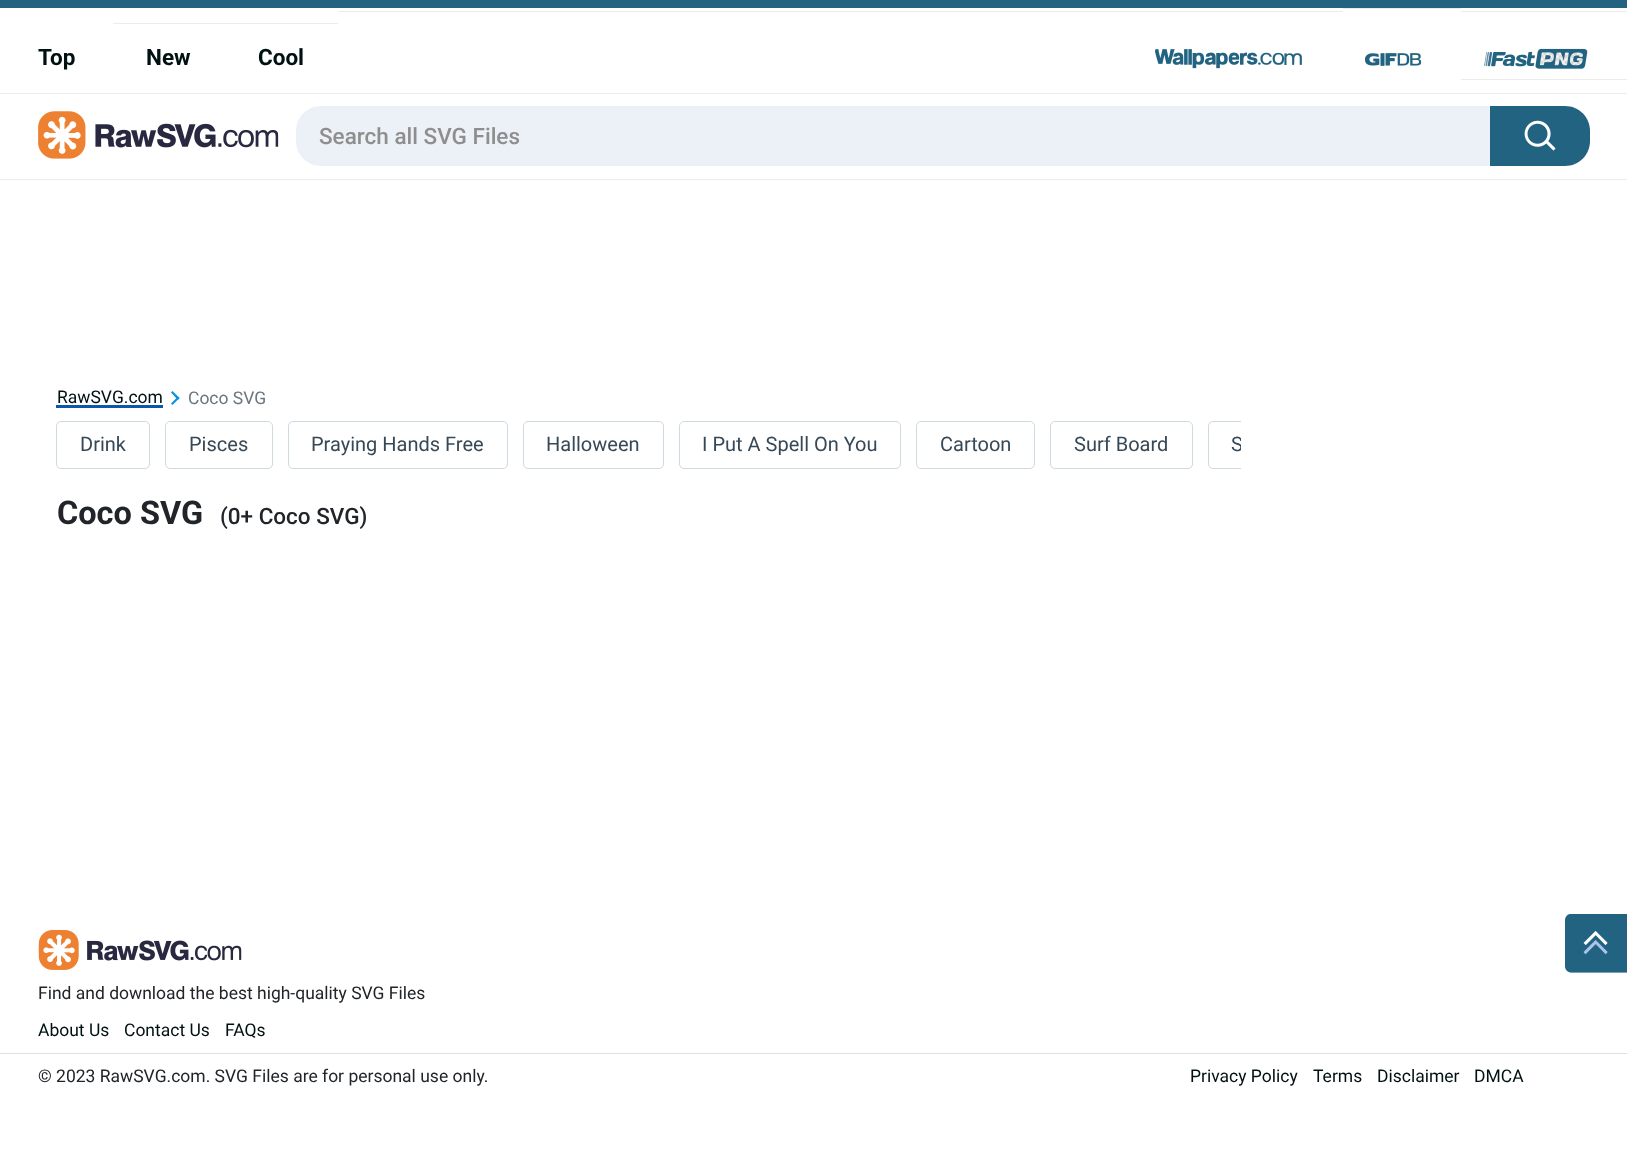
<svg xmlns="http://www.w3.org/2000/svg" width="1627" height="1174">
<defs>
<clipPath id="clip1"><rect x="56" y="421" width="1185" height="48"/></clipPath>
</defs>
<rect width="100%" height="100%" fill="#fff"/>
<rect width="1627" height="8" fill="#226381"/>
<rect y="93" width="1627" height="1" fill="#ececec"/>
<text x="38" y="65" style="font-family:Roboto;font-size:22.5px;font-weight:bold;fill:#011010">Top</text>
<rect x="113" y="23" width="225" height="1" fill="#ececec"/>
<text x="146" y="65" style="font-family:Roboto;font-size:22.5px;font-weight:bold;fill:#011010">New</text>
<text x="258" y="65" style="font-family:Roboto;font-size:22.5px;font-weight:bold;fill:#011010">Cool</text>
<rect x="338" y="11" width="1005" height="1" fill="#ececec"/>
<image x="1155" y="49" width="147" height="20" href="media/1.png"/>
<rect x="1343" y="8" width="118" height="1" fill="#ececec"/>
<image x="1365" y="53" width="56" height="13" href="media/2.png"/>
<rect x="1461" y="11" width="166" height="1" fill="#ececec"/>
<rect x="1461" y="79" width="166" height="1" fill="#ececec"/>
<image x="1484" y="48" width="104" height="21" href="media/3.png"/>
<rect y="179" width="1627" height="1" fill="#ececec"/>
<image x="38" y="111" width="241" height="48" href="media/4.png"/>
<path d="M321 106h1169v60h-1169c-14 0-25-11-25-25v-10c0-14 11-25 25-25z" fill="#ebf1f7"/>
<text x="319" y="144" style="font-family:Roboto;font-size:22.5px;font-weight:500;fill:#8e8e8e">Search all SVG Files</text>
<path d="M1490 106h75c14 0 25 11 25 25v10c0 14-11 25-25 25h-75z" fill="#226381"/>
<image x="1524" y="120" width="32" height="31" href="media/5.png"/>
<rect x="56" y="405" width="107" height="3" fill="#0b57ac"/>
<text x="57" y="403" style="font-family:Roboto;font-size:17.5px;fill:#011010">RawSVG.com</text>
<path d="M172.5 391l7 7l-1.5 2l-7-7.5z" fill="#0693e3"/>
<path d="M178 396.5l1.5 1.5l-7 7l-1.5-1.5z" fill="#0693e3"/>
<text x="188" y="404" style="font-family:Roboto;font-size:17.5px;fill:#6c757d">Coco SVG</text>
<rect x="56.5" y="421.5" width="93" height="47" rx="4.5" fill="none" stroke="#cfd9e0"/>
<text x="80" y="451" style="font-family:Roboto;font-size:20px;fill:#374957">Drink</text>
<rect x="165.5" y="421.5" width="107" height="47" rx="4.5" fill="none" stroke="#cfd9e0"/>
<text x="189" y="451" style="font-family:Roboto;font-size:20px;fill:#374957">Pisces</text>
<rect x="288.5" y="421.5" width="219" height="47" rx="4.5" fill="none" stroke="#cfd9e0"/>
<text x="311" y="451" style="font-family:Roboto;font-size:20px;fill:#374957">Praying Hands Free</text>
<rect x="523.5" y="421.5" width="140" height="47" rx="4.5" fill="none" stroke="#cfd9e0"/>
<text x="546" y="451" style="font-family:Roboto;font-size:20px;fill:#374957">Halloween</text>
<rect x="679.5" y="421.5" width="221" height="47" rx="4.5" fill="none" stroke="#cfd9e0"/>
<text x="702" y="451" style="font-family:Roboto;font-size:20px;fill:#374957">I Put A Spell On You</text>
<rect x="916.5" y="421.5" width="118" height="47" rx="4.5" fill="none" stroke="#cfd9e0"/>
<text x="940" y="451" style="font-family:Roboto;font-size:20px;fill:#374957">Cartoon</text>
<rect x="1050.5" y="421.5" width="142" height="47" rx="4.5" fill="none" stroke="#cfd9e0"/>
<text x="1074" y="451" style="font-family:Roboto;font-size:20px;fill:#374957">Surf Board</text>
<g clip-path="url(#clip1)">
<rect x="1208.5" y="421.5" width="134" height="47" rx="4.5" fill="none" stroke="#cfd9e0"/>
<text x="1231" y="451" style="font-family:Roboto;font-size:20px;fill:#374957">S</text>
</g>
<text x="57" y="524" style="font-family:Roboto;font-size:32.5px;font-weight:bold;fill:#212529">Coco SVG</text>
<text x="220" y="524" style="font-family:Roboto;font-size:22.5px;font-weight:500;fill:#212529">(0+ Coco SVG)</text>
<image x="1565" y="914" width="62" height="59" href="media/6.png"/>
<image x="38" y="930" width="204" height="40" href="media/7.png"/>
<text x="38" y="999" style="font-family:Roboto;font-size:17.5px;fill:#212529">Find and download the best high-quality SVG Files</text>
<text x="38" y="1036" style="font-family:Roboto;font-size:17.5px;fill:#011010">About Us</text>
<text x="124" y="1036" style="font-family:Roboto;font-size:17.5px;fill:#011010">Contact Us</text>
<text x="225" y="1036" style="font-family:Roboto;font-size:17.5px;fill:#011010">FAQs</text>
<rect y="1053" width="1627" height="1" fill="#e0e0e0"/>
<text x="38" y="1082" style="font-family:Roboto;font-size:17.5px;fill:#212529">© 2023 RawSVG.com. SVG Files are for personal use only.</text>
<text x="1190" y="1082" style="font-family:Roboto;font-size:17.5px;fill:#011010">Privacy Policy</text>
<text x="1313" y="1082" style="font-family:Roboto;font-size:17.5px;fill:#011010">Terms</text>
<text x="1377" y="1082" style="font-family:Roboto;font-size:17.5px;fill:#011010">Disclaimer</text>
<text x="1474" y="1082" style="font-family:Roboto;font-size:17.5px;fill:#011010">DMCA</text>
</svg>
